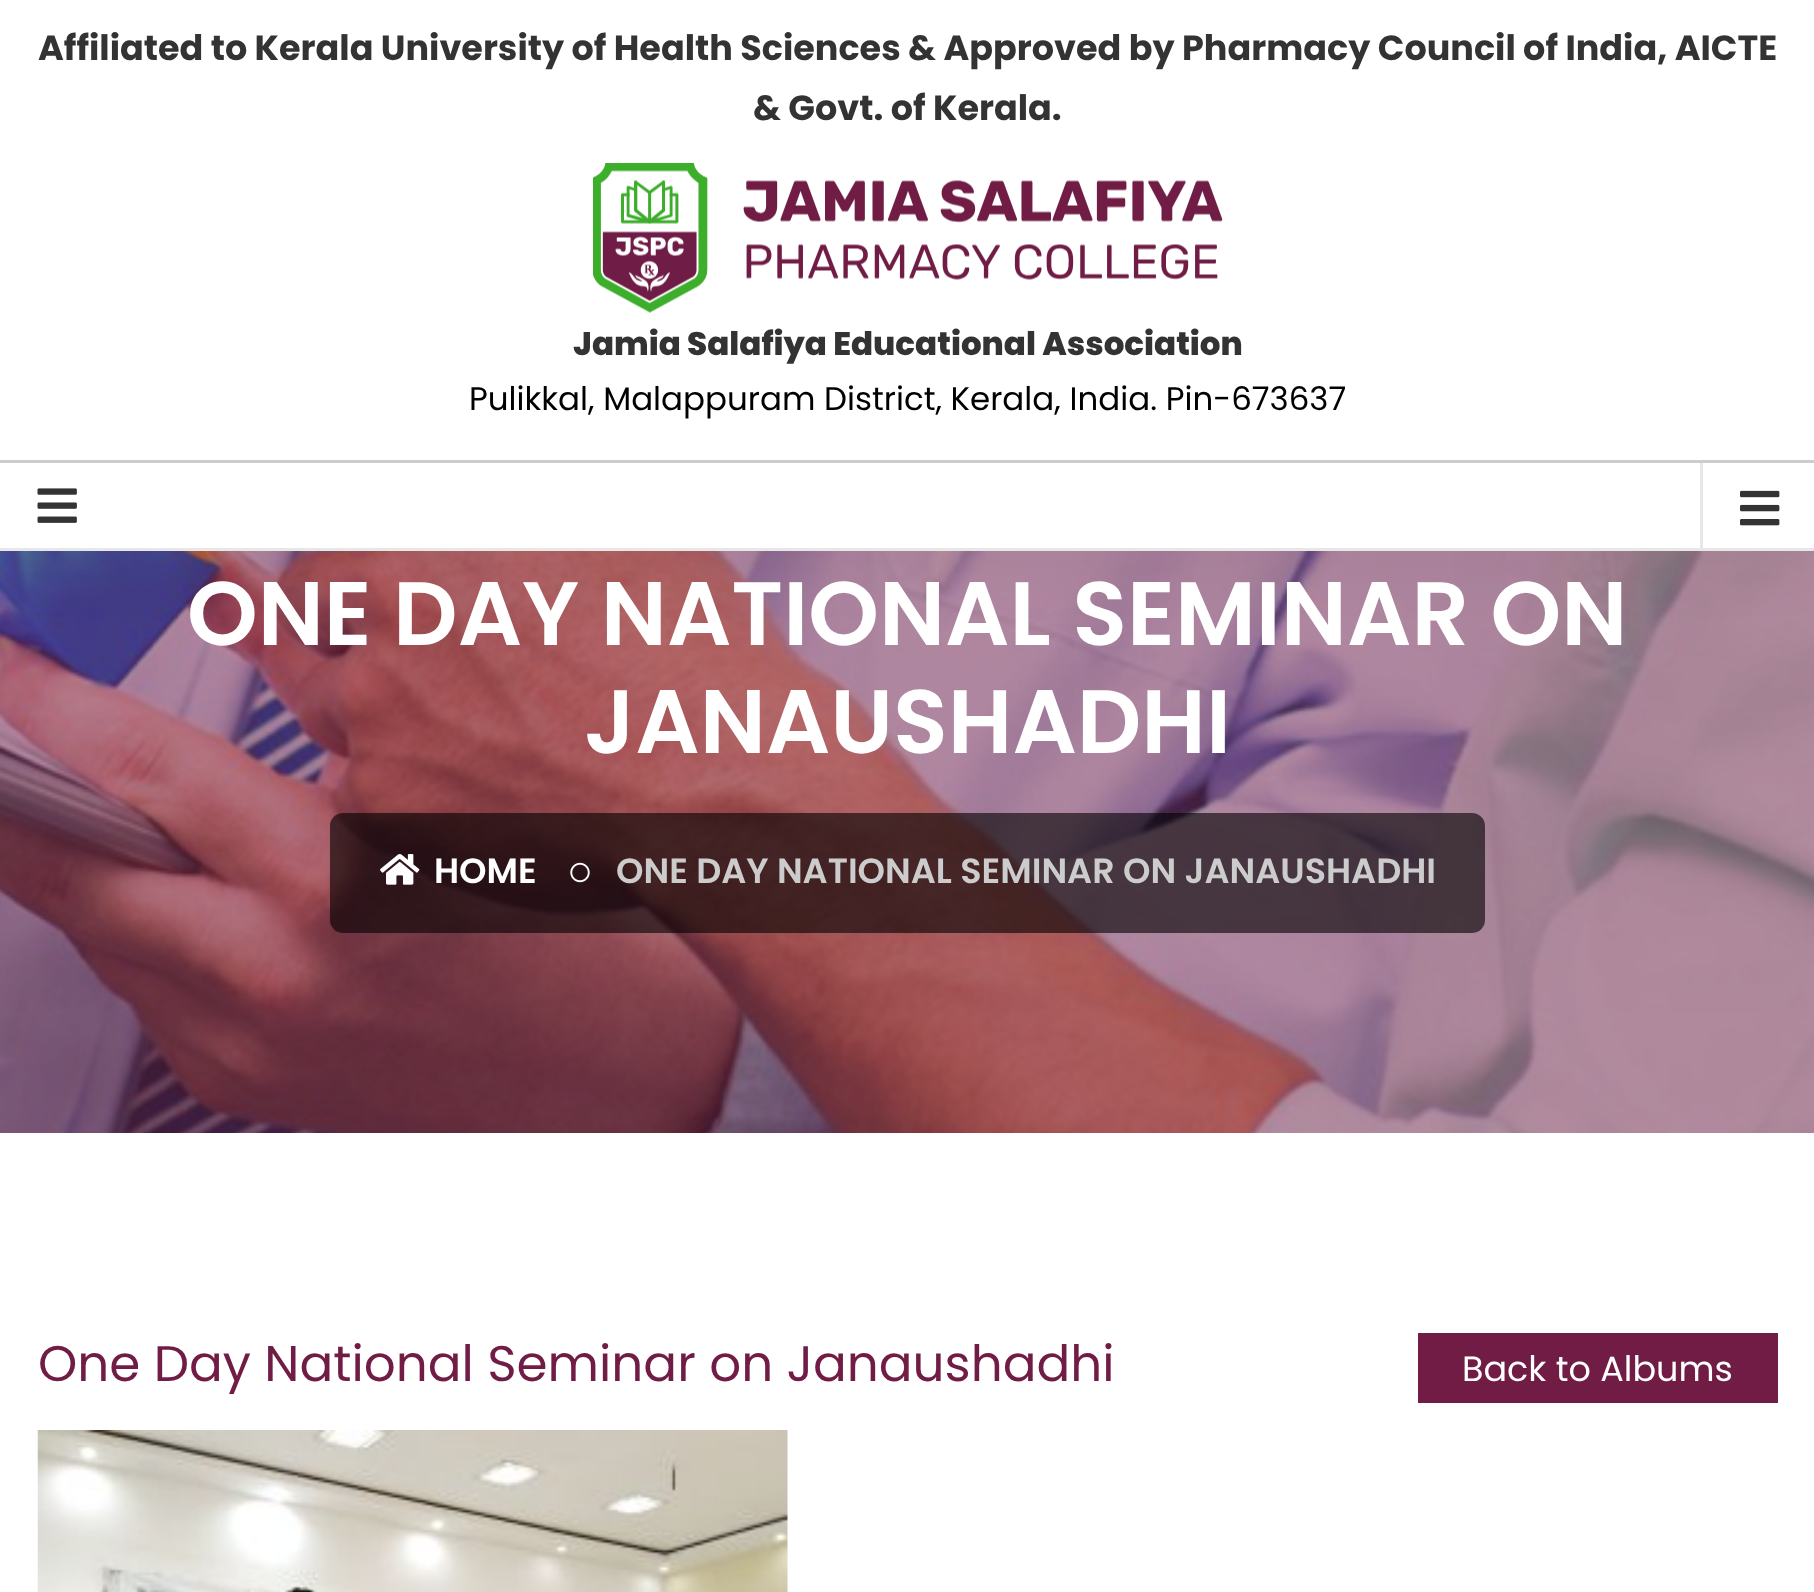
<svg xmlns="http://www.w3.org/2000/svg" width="1814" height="1592">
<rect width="100%" height="100%" fill="#fff"/>
<image x="0" y="551" width="1814" height="582" href="media/4.png"/>
<rect y="20" width="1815" height="550" fill="#0000000a" filter="blur(31px)"/>
<rect width="1814" height="548" fill="#fff"/>
<rect y="460" width="1814" height="3" fill="#ccc"/>
<text x="38" y="60" style="font-family:Poppins;font-size:35px;font-weight:bold;fill:#333">Affiliated to Kerala University of Health Sciences &amp; Approved by Pharmacy Council of India, AICTE</text>
<text x="753" y="120" style="font-family:Poppins;font-size:35px;font-weight:bold;fill:#333">&amp; Govt. of Kerala.</text>
<image x="593" y="163" width="630" height="150" href="media/1.png"/>
<text x="573" y="355" style="font-family:Poppins;font-size:32.5px;font-weight:800;fill:#333">Jamia Salafiya Educational Association</text>
<text x="469" y="410" style="font-family:Poppins;font-size:32.5px;fill:#000">Pulikkal, Malappuram District, Kerala, India. Pin-673637</text>
<rect x="1700" y="463" width="3" height="85" fill="#e7e7e7"/>
<image x="1740" y="490" width="40" height="36" href="media/2.png"/>
<rect y="548" width="1814" height="3" fill="#e7e7e7"/>
<image x="37" y="488" width="40" height="35" href="media/3.png"/>
<text x="187" y="645" style="font-family:Poppins;font-size:90px;font-weight:600;fill:#fff">ONE DAY NATIONAL SEMINAR ON</text>
<text x="584" y="753" style="font-family:Poppins;font-size:90px;font-weight:600;fill:#fff">JANAUSHADHI</text>
<rect x="330" y="813" width="1155" height="120" rx="13" fill="#00000099"/>
<image x="380" y="854" width="40" height="31" href="media/5.png"/>
<text x="434" y="883" style="font-family:Poppins;font-size:35px;font-weight:600;fill:#fff">HOME</text>
<image x="570" y="862" width="20" height="21" href="media/6.png"/>
<text x="616" y="883" style="font-family:Poppins;font-size:35px;font-weight:600;fill:#ccc">ONE DAY NATIONAL SEMINAR ON JANAUSHADHI</text>
<text x="38" y="1381" style="font-family:Poppins;font-size:50px;fill:#701c45">One Day National Seminar on Janaushadhi</text>
<rect x="1418" y="1333" width="360" height="70" fill="#701c45"/>
<text x="1462" y="1381" style="font-family:Poppins;font-size:35px;fill:#fff">Back to Albums</text>
<image x="37" y="1430" width="751" height="162" href="media/7.png"/>
</svg>
